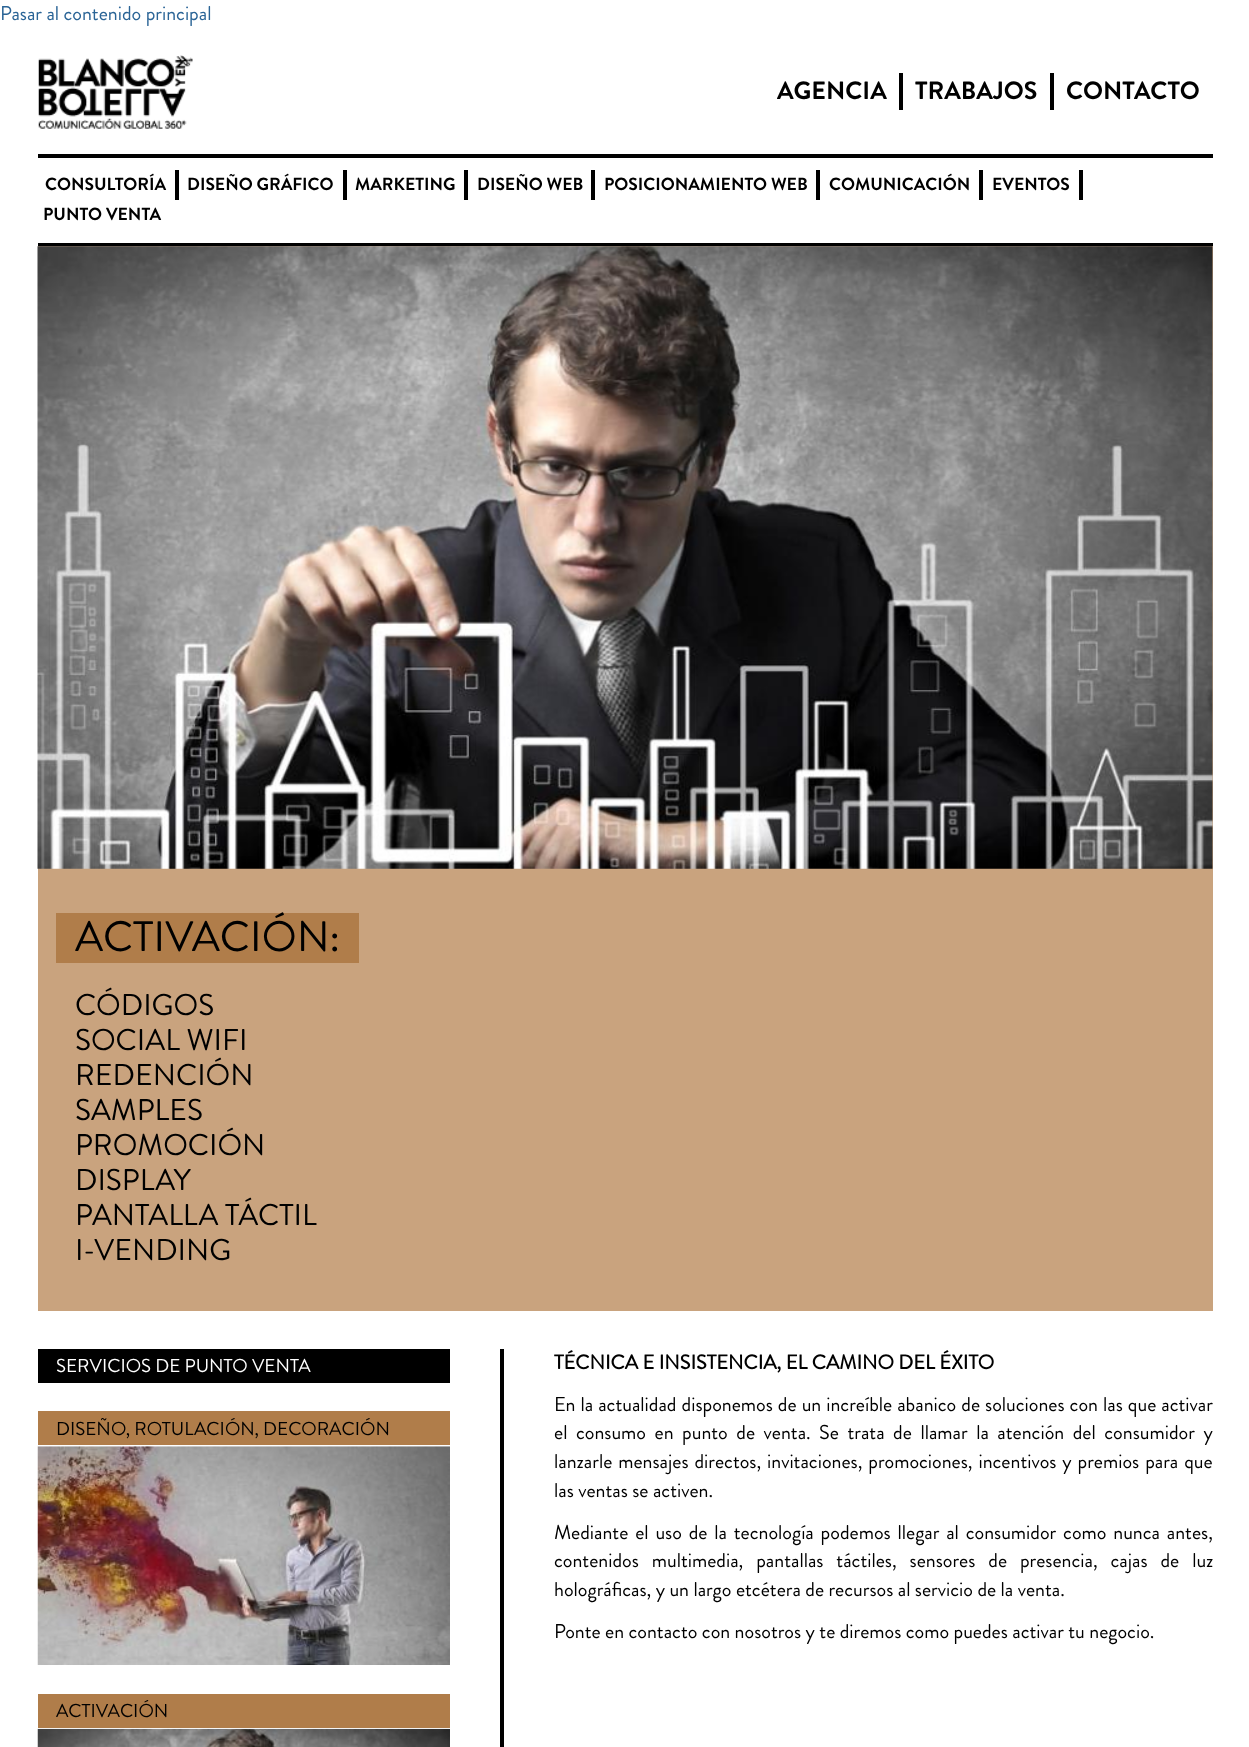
<svg xmlns="http://www.w3.org/2000/svg" width="1249" height="1747">
<rect width="100%" height="100%" fill="#fff"/>
<text x="0" y="20" style="font-family:Brandon Grotesque;font-size:20px;fill:#2a6496">Pasar al contenido principal</text>
<image x="38" y="55" width="155" height="74" href="media/1.png"/>
<text x="777" y="99" style="font-family:Brandon Grotesque;font-size:25px;font-weight:bold;fill:#000">AGENCIA</text>
<rect x="899" y="73" width="4" height="37" fill="#000"/>
<text x="915" y="99" style="font-family:Brandon Grotesque;font-size:25px;font-weight:bold;fill:#000">TRABAJOS</text>
<rect x="1050" y="73" width="4" height="37" fill="#000"/>
<text x="1066" y="99" style="font-family:Brandon Grotesque;font-size:25px;font-weight:bold;fill:#000">CONTACTO</text>
<rect x="38" y="154" width="1175" height="4" fill="#000"/>
<rect x="38" y="243" width="1175" height="3" fill="#000"/>
<text x="45" y="190" style="font-family:Brandon Grotesque;font-size:17.5px;font-weight:bold;fill:#000">CONSULTORÍA</text>
<rect x="175" y="170" width="4" height="30" fill="#000"/>
<text x="187" y="190" style="font-family:Brandon Grotesque;font-size:17.5px;font-weight:bold;fill:#000">DISEÑO GRÁFICO</text>
<rect x="343" y="170" width="4" height="30" fill="#000"/>
<text x="355" y="190" style="font-family:Brandon Grotesque;font-size:17.5px;font-weight:bold;fill:#000">MARKETING</text>
<rect x="464" y="170" width="4" height="30" fill="#000"/>
<text x="477" y="190" style="font-family:Brandon Grotesque;font-size:17.5px;font-weight:bold;fill:#000">DISEÑO WEB</text>
<rect x="591" y="170" width="4" height="30" fill="#000"/>
<text x="604" y="190" style="font-family:Brandon Grotesque;font-size:17.5px;font-weight:bold;fill:#000">POSICIONAMIENTO WEB</text>
<rect x="816" y="170" width="4" height="30" fill="#000"/>
<text x="829" y="190" style="font-family:Brandon Grotesque;font-size:17.5px;font-weight:bold;fill:#000">COMUNICACIÓN</text>
<rect x="979" y="170" width="4" height="30" fill="#000"/>
<text x="992" y="190" style="font-family:Brandon Grotesque;font-size:17.5px;font-weight:bold;fill:#000">EVENTOS</text>
<rect x="1079" y="170" width="4" height="30" fill="#000"/>
<text x="43" y="220" style="font-family:Brandon Grotesque;font-size:17.5px;font-weight:bold;fill:#000">PUNTO VENTA</text>
<rect x="38" y="246" width="1175" height="1065" fill="#c9a37e"/>
<image x="37" y="246" width="1176" height="623" href="media/2.png"/>
<rect x="56" y="913" width="303" height="50" fill="#b07d4a"/>
<text x="75" y="951" style="font-family:Brandon Grotesque;font-size:42.5px;fill:#000">ACTIVACIÓN:</text>
<text x="75" y="1015" style="font-family:Brandon Grotesque;font-size:30px;fill:#000">CÓDIGOS</text>
<text x="75" y="1050" style="font-family:Brandon Grotesque;font-size:30px;fill:#000">SOCIAL WIFI</text>
<text x="75" y="1085" style="font-family:Brandon Grotesque;font-size:30px;fill:#000">REDENCIÓN</text>
<text x="75" y="1120" style="font-family:Brandon Grotesque;font-size:30px;fill:#000">SAMPLES</text>
<text x="75" y="1155" style="font-family:Brandon Grotesque;font-size:30px;fill:#000">PROMOCIÓN</text>
<text x="75" y="1190" style="font-family:Brandon Grotesque;font-size:30px;fill:#000">DISPLAY</text>
<text x="75" y="1225" style="font-family:Brandon Grotesque;font-size:30px;fill:#000">PANTALLA TÁCTIL</text>
<text x="75" y="1260" style="font-family:Brandon Grotesque;font-size:30px;fill:#000">I-VENDING</text>
<rect x="500" y="1349" width="4" height="398" fill="#000"/>
<rect x="38" y="1349" width="412" height="34" fill="#000"/>
<text x="56" y="1372" style="font-family:Brandon Grotesque;font-size:18.75px;fill:#fff">SERVICIOS DE PUNTO VENTA</text>
<rect x="38" y="1411" width="412" height="34" fill="#b07d4a"/>
<text x="56" y="1435" style="font-family:Brandon Grotesque;font-size:18.75px;fill:#000">DISEÑO, ROTULACIÓN, DECORACIÓN</text>
<image x="37" y="1446" width="413" height="219" href="media/3.png"/>
<rect x="38" y="1694" width="412" height="34" fill="#b07d4a"/>
<text x="56" y="1717" style="font-family:Brandon Grotesque;font-size:18.75px;fill:#000">ACTIVACIÓN</text>
<image x="37" y="1728" width="413" height="19" href="media/4.png"/>
<text x="554" y="1369" style="font-family:'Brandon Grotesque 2';font-size:20px;font-weight:bold;fill:#000">TÉCNICA E INSISTENCIA, EL CAMINO DEL ÉXITO</text>
<text x="554" y="1411" word-spacing="0.6" style="font-family:Brandon Grotesque;font-size:20px;fill:#000">En la actualidad disponemos de un increíble abanico de soluciones con las que activar</text>
<text x="554" y="1439" word-spacing="4.1" style="font-family:Brandon Grotesque;font-size:20px;fill:#000">el consumo en punto de venta. Se trata de llamar la atención del consumidor y</text>
<text x="554" y="1468" word-spacing="1.5" style="font-family:Brandon Grotesque;font-size:20px;fill:#000">lanzarle mensajes directos, invitaciones, promociones, incentivos y premios para que</text>
<text x="554" y="1497" style="font-family:Brandon Grotesque;font-size:20px;fill:#000">las ventas se activen.</text>
<text x="554" y="1539" word-spacing="2.4" style="font-family:Brandon Grotesque;font-size:20px;fill:#000">Mediante el uso de la tecnología podemos llegar al consumidor como nunca antes,</text>
<text x="554" y="1567" word-spacing="8.5" style="font-family:Brandon Grotesque;font-size:20px;fill:#000">contenidos multimedia, pantallas táctiles, sensores de presencia, cajas de luz</text>
<text x="554" y="1596" style="font-family:Brandon Grotesque;font-size:20px;fill:#000">holográficas, y un largo etcétera de recursos al servicio de la venta.</text>
<text x="554" y="1638" style="font-family:Brandon Grotesque;font-size:20px;fill:#000">Ponte en contacto con nosotros y te diremos como puedes activar tu negocio.</text>
</svg>
